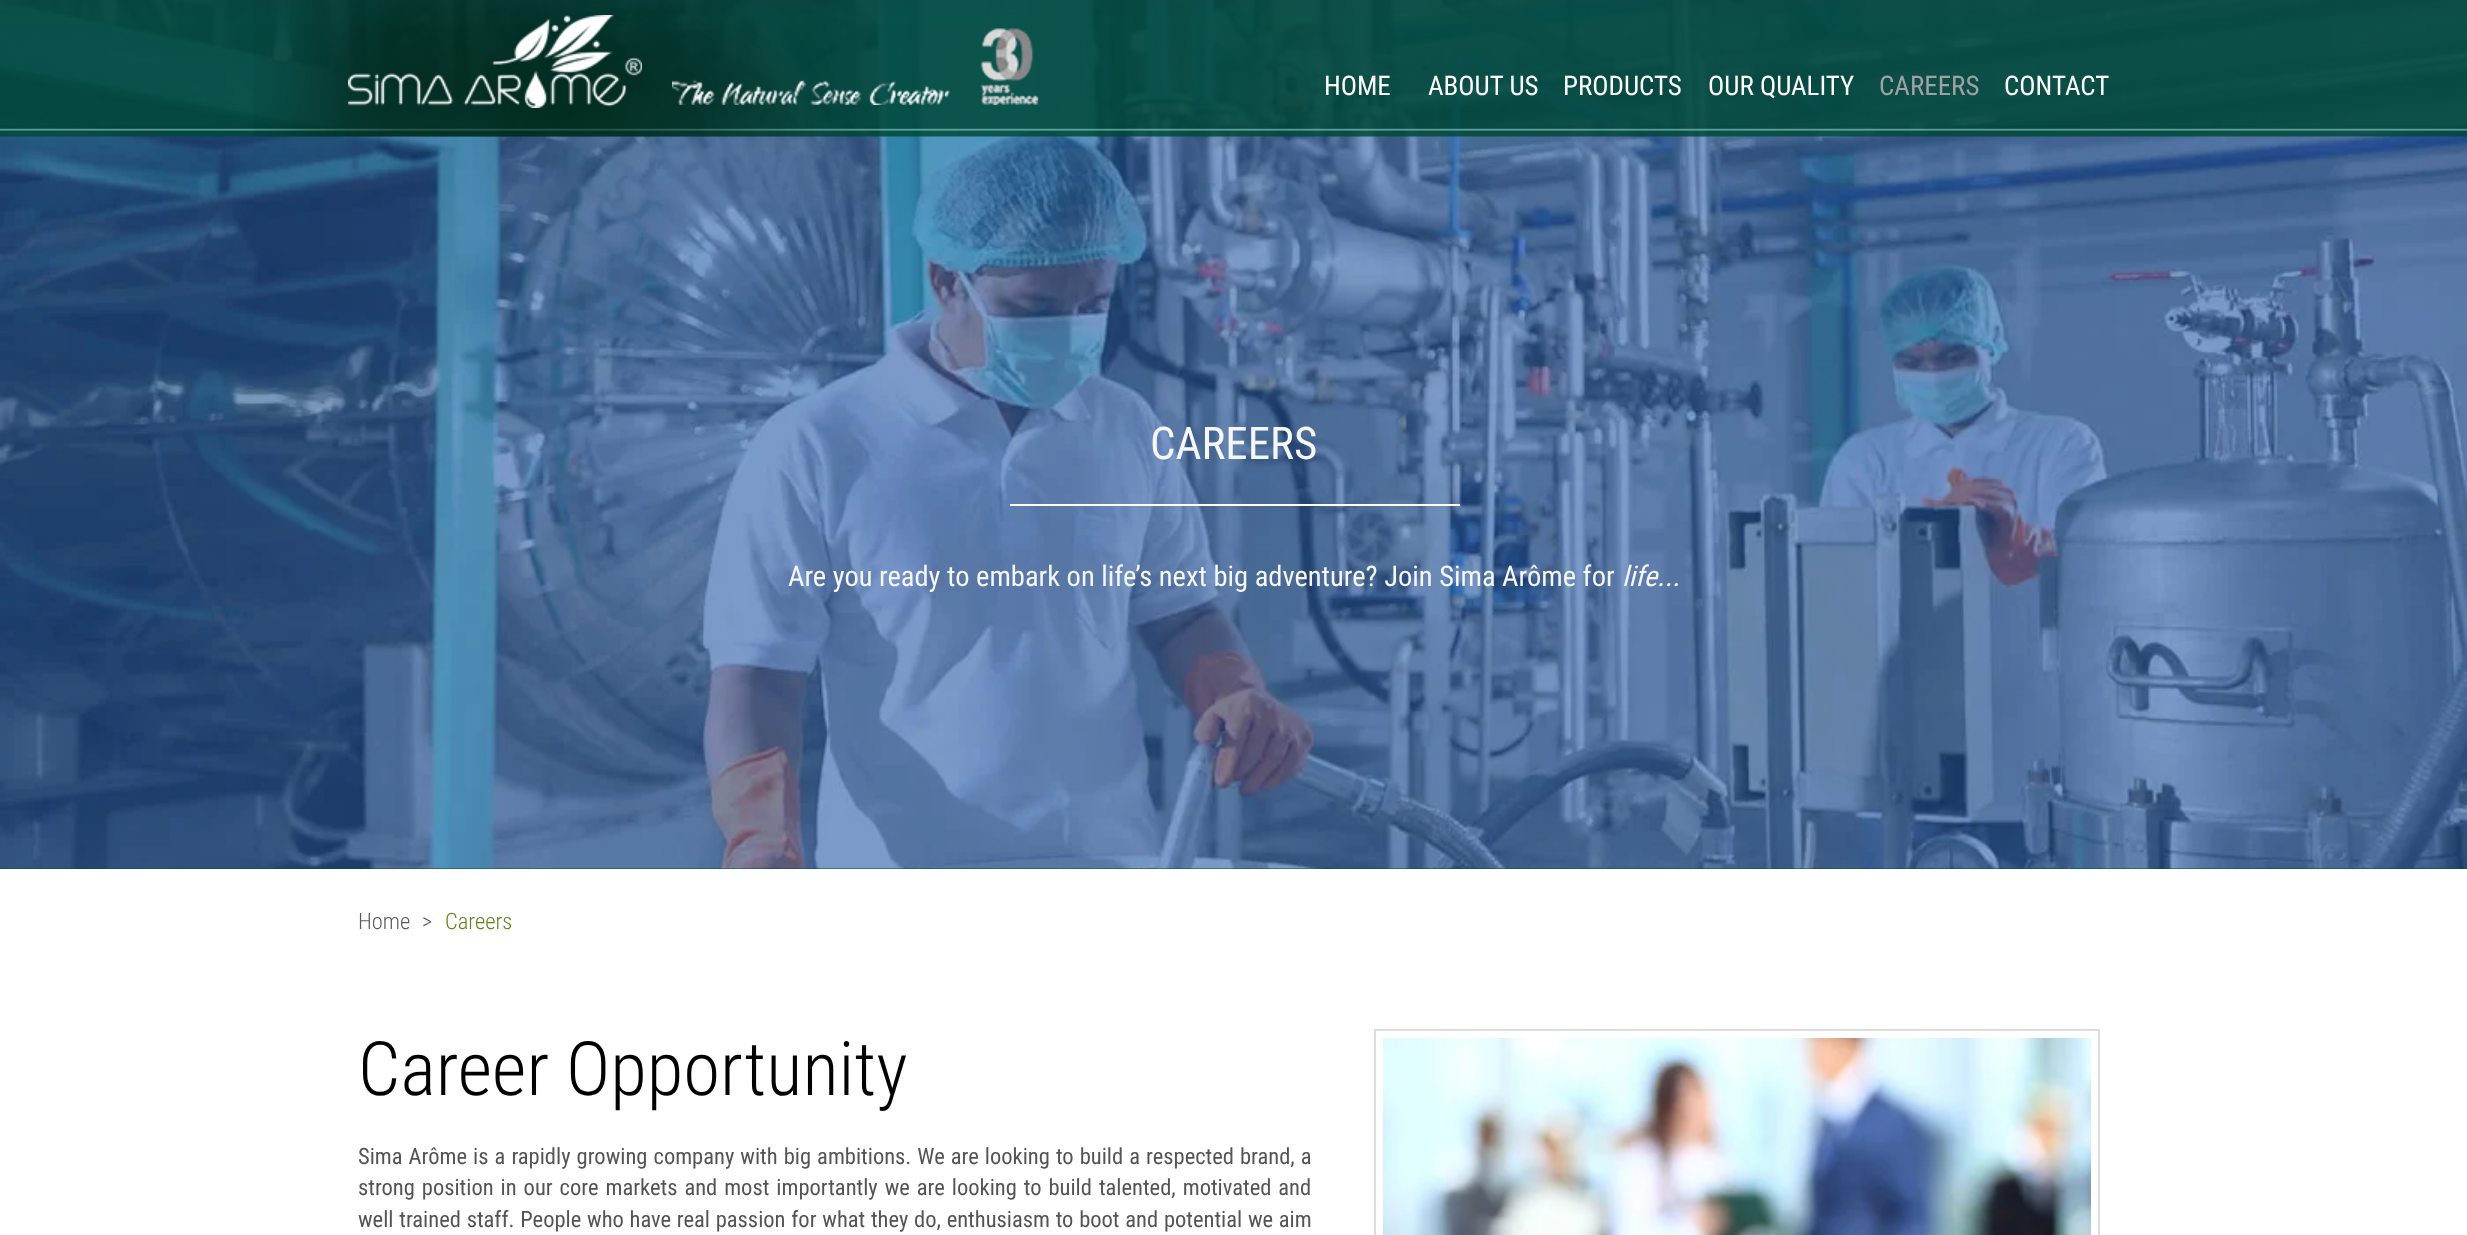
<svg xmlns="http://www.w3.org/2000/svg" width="2467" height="1235">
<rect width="100%" height="100%" fill="#004d3e"/>
<image x="0" y="0" width="2467" height="869" href="media/5.png"/>
<image x="0" y="0" width="2467" height="137" href="media/1.png"/>
<image x="253" y="0" width="603" height="137" href="media/2.png"/>
<image x="348" y="15" width="294" height="93" href="media/3.png"/>
<image x="672" y="28" width="367" height="77" href="media/4.png"/>
<text x="1324" y="95" style="font-family:Roboto Condensed;font-size:27px;fill:#fff">HOME</text>
<text x="1428" y="95" style="font-family:Roboto Condensed;font-size:27px;fill:#fff">ABOUT US</text>
<text x="1563" y="95" style="font-family:Roboto Condensed;font-size:27px;fill:#fff">PRODUCTS</text>
<text x="1708" y="95" style="font-family:Roboto Condensed;font-size:27px;fill:#fff">OUR QUALITY</text>
<text x="1879" y="95" style="font-family:Roboto Condensed;font-size:27px;fill:#a1a1a1">CAREERS</text>
<text x="2004" y="95" style="font-family:Roboto Condensed;font-size:27px;fill:#fff">CONTACT</text>
<text x="1150" y="459" style="font-family:Roboto Condensed;font-size:45px;fill:#f5f6f7">CAREERS</text>
<rect x="1010" y="504" width="450" height="2" fill="#fff"/>
<text x="788" y="586" style="font-family:Roboto Condensed;font-size:28.5px;fill:#f5f6f7">Are you ready to embark on life’s next big adventure? Join Sima Arôme for</text>
<text x="1622" y="586" style="font-family:Roboto Condensed;font-size:28.5px;font-style:italic;fill:#f5f6f7">life...</text>
<rect y="869" width="2467" height="366" fill="#fff"/>
<text x="358" y="929" style="font-family:Roboto Condensed;font-size:22.5px;font-weight:300;fill:#5c5c5c">Home</text>
<text x="422" y="929" style="font-family:Roboto Condensed;font-size:22.5px;font-weight:300;fill:#5c5c5c">&gt;</text>
<text x="445" y="929" style="font-family:Roboto Condensed;font-size:22.5px;font-weight:300;fill:#5d861a">Careers</text>
<text x="358" y="1095" style="font-family:Roboto Condensed;font-size:75px;font-weight:300;fill:#000">Career Opportunity</text>
<text x="358" y="1164" word-spacing="0.9" style="font-family:Roboto Condensed;font-size:22.5px;fill:#545454">Sima Arôme is a rapidly growing company with big ambitions. We are looking to build a respected brand, a</text>
<text x="358" y="1195" word-spacing="1.8" style="font-family:Roboto Condensed;font-size:22.5px;fill:#545454">strong position in our core markets and most importantly we are looking to build talented, motivated and</text>
<text x="358" y="1227" word-spacing="0.6" style="font-family:Roboto Condensed;font-size:22.5px;fill:#545454">well trained staff. People who have real passion for what they do, enthusiasm to boot and potential we aim</text>
<rect x="1375" y="1030" width="724" height="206" fill="none" stroke="#ddd" stroke-width="2"/>
<image x="1383" y="1038" width="708" height="197" href="media/6.png"/>
</svg>
